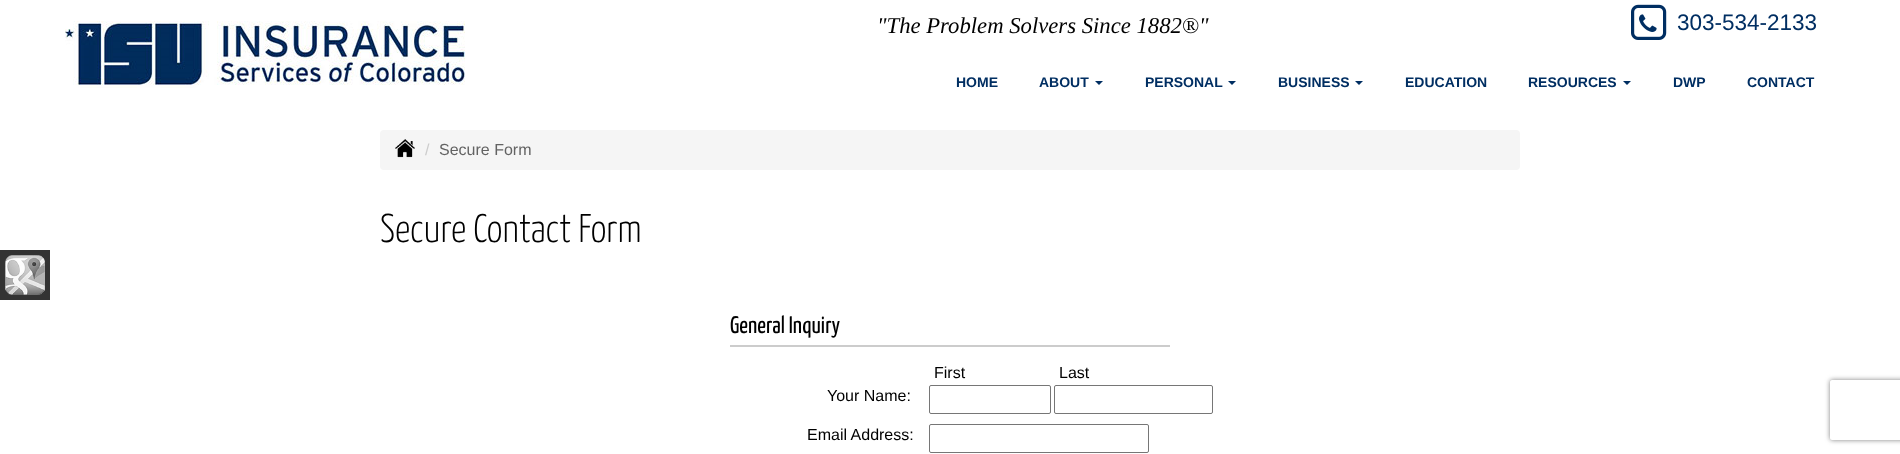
<svg xmlns="http://www.w3.org/2000/svg" width="1900" height="454">
<defs>
<clipPath id="clip1"><path d="M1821 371h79v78h-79zm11 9h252c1 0 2 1 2 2v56c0 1-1 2-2 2h-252c-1 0-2-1-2-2v-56c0-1 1-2 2-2z" clip-rule="evenodd"/></clipPath>
</defs>
<rect width="100%" height="100%" fill="#fff"/>
<image x="1631" y="4" width="36" height="36" href="media/1.png"/>
<image x="1639" y="14" width="18" height="18" href="media/2.png"/>
<text x="1677" y="30" style="font-family:Liberation Sans;font-size:22.5px;fill:#002e62">303-534-2133</text>
<text x="956" y="87" style="font-family:Liberation Sans;font-size:14px;font-weight:bold;fill:#002e62">HOME</text>
<text x="1039" y="87" style="font-family:Liberation Sans;font-size:14px;font-weight:bold;fill:#002e62">ABOUT</text>
<path d="M1095 81h8l-4 4z" fill="#002e62"/>
<text x="1145" y="87" style="font-family:Liberation Sans;font-size:14px;font-weight:bold;fill:#002e62">PERSONAL</text>
<path d="M1228 81h8l-4 4z" fill="#002e62"/>
<text x="1278" y="87" style="font-family:Liberation Sans;font-size:14px;font-weight:bold;fill:#002e62">BUSINESS</text>
<path d="M1355 81h8l-4 4z" fill="#002e62"/>
<text x="1405" y="87" style="font-family:Liberation Sans;font-size:14px;font-weight:bold;fill:#002e62">EDUCATION</text>
<text x="1528" y="87" style="font-family:Liberation Sans;font-size:14px;font-weight:bold;fill:#002e62">RESOURCES</text>
<path d="M1623 81h8l-4 4z" fill="#002e62"/>
<text x="1673" y="87" style="font-family:Liberation Sans;font-size:14px;font-weight:bold;fill:#002e62">DWP</text>
<text x="1747" y="87" style="font-family:Liberation Sans;font-size:14px;font-weight:bold;fill:#002e62">CONTACT</text>
<image x="65" y="21" width="400" height="67" href="media/3.png"/>
<text x="877" y="33" style="font-family:Liberation Serif;font-size:22.7px;font-style:italic;fill:#000">"The Problem Solvers Since 1882®"</text>
<rect y="250" width="50" height="50" fill="#333"/>
<image x="5" y="255" width="40" height="40" href="media/4.png"/>
<rect x="380" y="130" width="1140" height="40" rx="4" fill="#f5f5f5"/>
<image x="395" y="139" width="20" height="19" href="media/5.png"/>
<text x="425" y="155" style="font-family:Liberation Sans;font-size:16px;fill:#ccc">/</text>
<text x="439" y="155" style="font-family:Liberation Sans;font-size:16px;fill:#636363">Secure Form</text>
<text x="380" y="242" style="font-family:Yanone Kaffeesatz;font-size:40px;font-weight:300;fill:#000">Secure Contact Form</text>
<rect x="730" y="345" width="440" height="2" fill="#ccc"/>
<text x="730" y="333" style="font-family:Yanone Kaffeesatz;font-size:24px;fill:#000">General Inquiry</text>
<text x="934" y="378" style="font-family:Liberation Sans;font-size:16px;fill:#000">First</text>
<text x="1059" y="378" style="font-family:Liberation Sans;font-size:16px;fill:#000">Last</text>
<rect x="929.5" y="385.5" width="121" height="28" rx="1.5" fill="none" stroke="#767676"/>
<rect x="1054.5" y="385.5" width="158" height="28" rx="1.5" fill="none" stroke="#767676"/>
<text x="827" y="401" style="font-family:Liberation Sans;font-size:16px;fill:#000">Your Name:</text>
<g clip-path="url(#clip1)">
<rect x="1830" y="380" width="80" height="60" rx="2" fill="#808080" filter="blur(2.5px)"/>
</g>
<text x="807" y="440" style="font-family:Liberation Sans;font-size:16px;fill:#000">Email Address:</text>
<rect x="929.5" y="424.5" width="219" height="28" rx="1.5" fill="none" stroke="#767676"/>
</svg>
